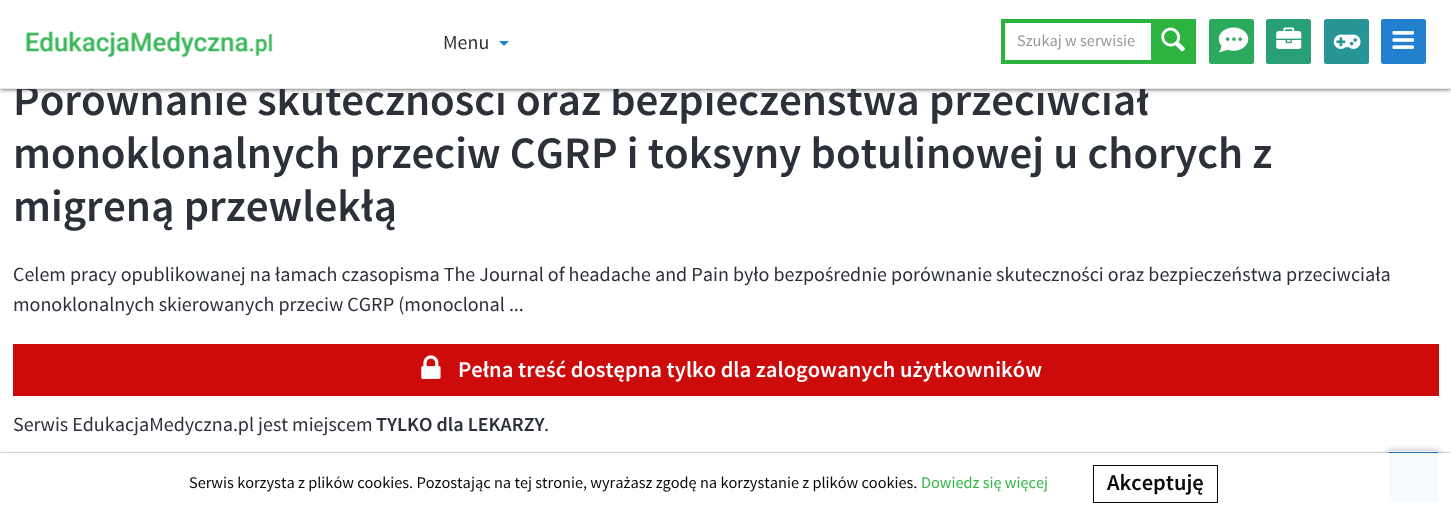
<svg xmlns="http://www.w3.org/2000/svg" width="1451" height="515">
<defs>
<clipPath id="clip1"><rect x="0" y="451" width="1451" height="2"/></clipPath>
</defs>
<rect width="100%" height="100%" fill="#fff"/>
<rect width="1451" height="89" fill="#444" filter="blur(2.5px)"/>
<text x="13" y="115" style="font-family:Source Sans Pro;font-size:45px;font-weight:600;fill:#2c3039">Porównanie skuteczności oraz bezpieczeństwa przeciwciał</text>
<rect width="1451" height="88" fill="#fff"/>
<rect y="88" width="1451" height="1" fill="#e9e9e9"/>
<image x="25" y="31" width="248" height="27" href="media/1.png"/>
<text x="443" y="49" style="font-family:Source Sans Pro;font-size:20px;fill:#333">Menu</text>
<path d="M499 41h10l-5 5z" fill="#2380cf"/>
<rect x="1001" y="19" width="195" height="45" fill="#2db440"/>
<rect x="1005" y="23" width="146" height="37" fill="#fff"/>
<text x="1017" y="46" style="font-family:Source Sans Pro;font-size:16.25px;fill:#96989c">Szukaj w serwisie</text>
<image x="1161" y="27" width="24" height="25" href="media/2.png"/>
<rect x="1209" y="19" width="45" height="45" rx="2.5" fill="#2baa5d"/>
<image x="1218" y="27" width="31" height="26" href="media/3.png"/>
<rect x="1266" y="19" width="45" height="45" rx="2.5" fill="#299f79"/>
<image x="1276" y="27" width="26" height="22" href="media/4.png"/>
<rect x="1324" y="19" width="45" height="45" rx="2.5" fill="#279596"/>
<image x="1333" y="34" width="28" height="15" href="media/5.png"/>
<rect x="1381" y="19" width="45" height="45" rx="2.5" fill="#2380cf"/>
<image x="1392" y="31" width="22" height="18" href="media/6.png"/>
<text x="13" y="168" style="font-family:Source Sans Pro;font-size:45px;font-weight:600;fill:#2c3039">monoklonalnych przeciw CGRP i toksyny botulinowej u chorych z</text>
<text x="13" y="221" style="font-family:Source Sans Pro;font-size:45px;font-weight:600;fill:#2c3039">migreną przewlekłą</text>
<text x="13" y="281" style="font-family:Source Sans Pro;font-size:20px;fill:#2c3039">Celem pracy opublikowanej na łamach czasopisma The Journal of headache and Pain było bezpośrednie porównanie skuteczności oraz bezpieczeństwa przeciwciała</text>
<text x="13" y="311" style="font-family:Source Sans Pro;font-size:20px;fill:#2c3039">monoklonalnych skierowanych przeciw CGRP (monoclonal ...</text>
<rect x="13" y="344" width="1426" height="52" fill="#ce0b0b"/>
<image x="421" y="355" width="20" height="24" href="media/7.png"/>
<text x="458" y="377" style="font-family:Source Sans Pro;font-size:22.5px;font-weight:600;fill:#fff">Pełna treść dostępna tylko dla zalogowanych użytkowników</text>
<text x="13" y="431" style="font-family:Source Sans Pro;font-size:20px;fill:#2c3039">Serwis EdukacjaMedyczna.pl jest miejscem</text>
<text x="376" y="431" style="font-family:Source Sans Pro;font-size:20px;font-weight:600;fill:#2c3039">TYLKO dla LEKARZY</text>
<text x="544" y="431" style="font-family:Source Sans Pro;font-size:20px;fill:#2c3039">.</text>
<rect x="13.5" y="514.5" width="1425" height="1" fill="none" stroke="#e9e9e9"/>
<rect x="1388" y="451" width="51" height="52" fill="#aaa" filter="blur(3px)"/>
<rect x="1388.5" y="451.5" width="50" height="51" fill="#2380cf" stroke="#fff"/>
<g clip-path="url(#clip1)">
<rect y="453" width="1451" height="62" fill="#0000007a" filter="blur(1px)"/>
</g>
<rect x="13" y="453" width="1432" height="62" fill="#fffffff5"/>
<text x="189" y="488" style="font-family:Source Sans Pro;font-size:16.25px;fill:#0a0a0a">Serwis korzysta z plików cookies. Pozostając na tej stronie, wyrażasz zgodę na korzystanie z plików cookies.</text>
<text x="921" y="488" style="font-family:Source Sans Pro;font-size:16.25px;fill:#35b748">Dowiedz się więcej</text>
<rect x="1093.5" y="465.5" width="124" height="37" fill="none" stroke="#0a0a0a"/>
<text x="1107" y="490" style="font-family:Source Sans Pro;font-size:22.5px;font-weight:600;fill:#0a0a0a">Akceptuję</text>
</svg>
